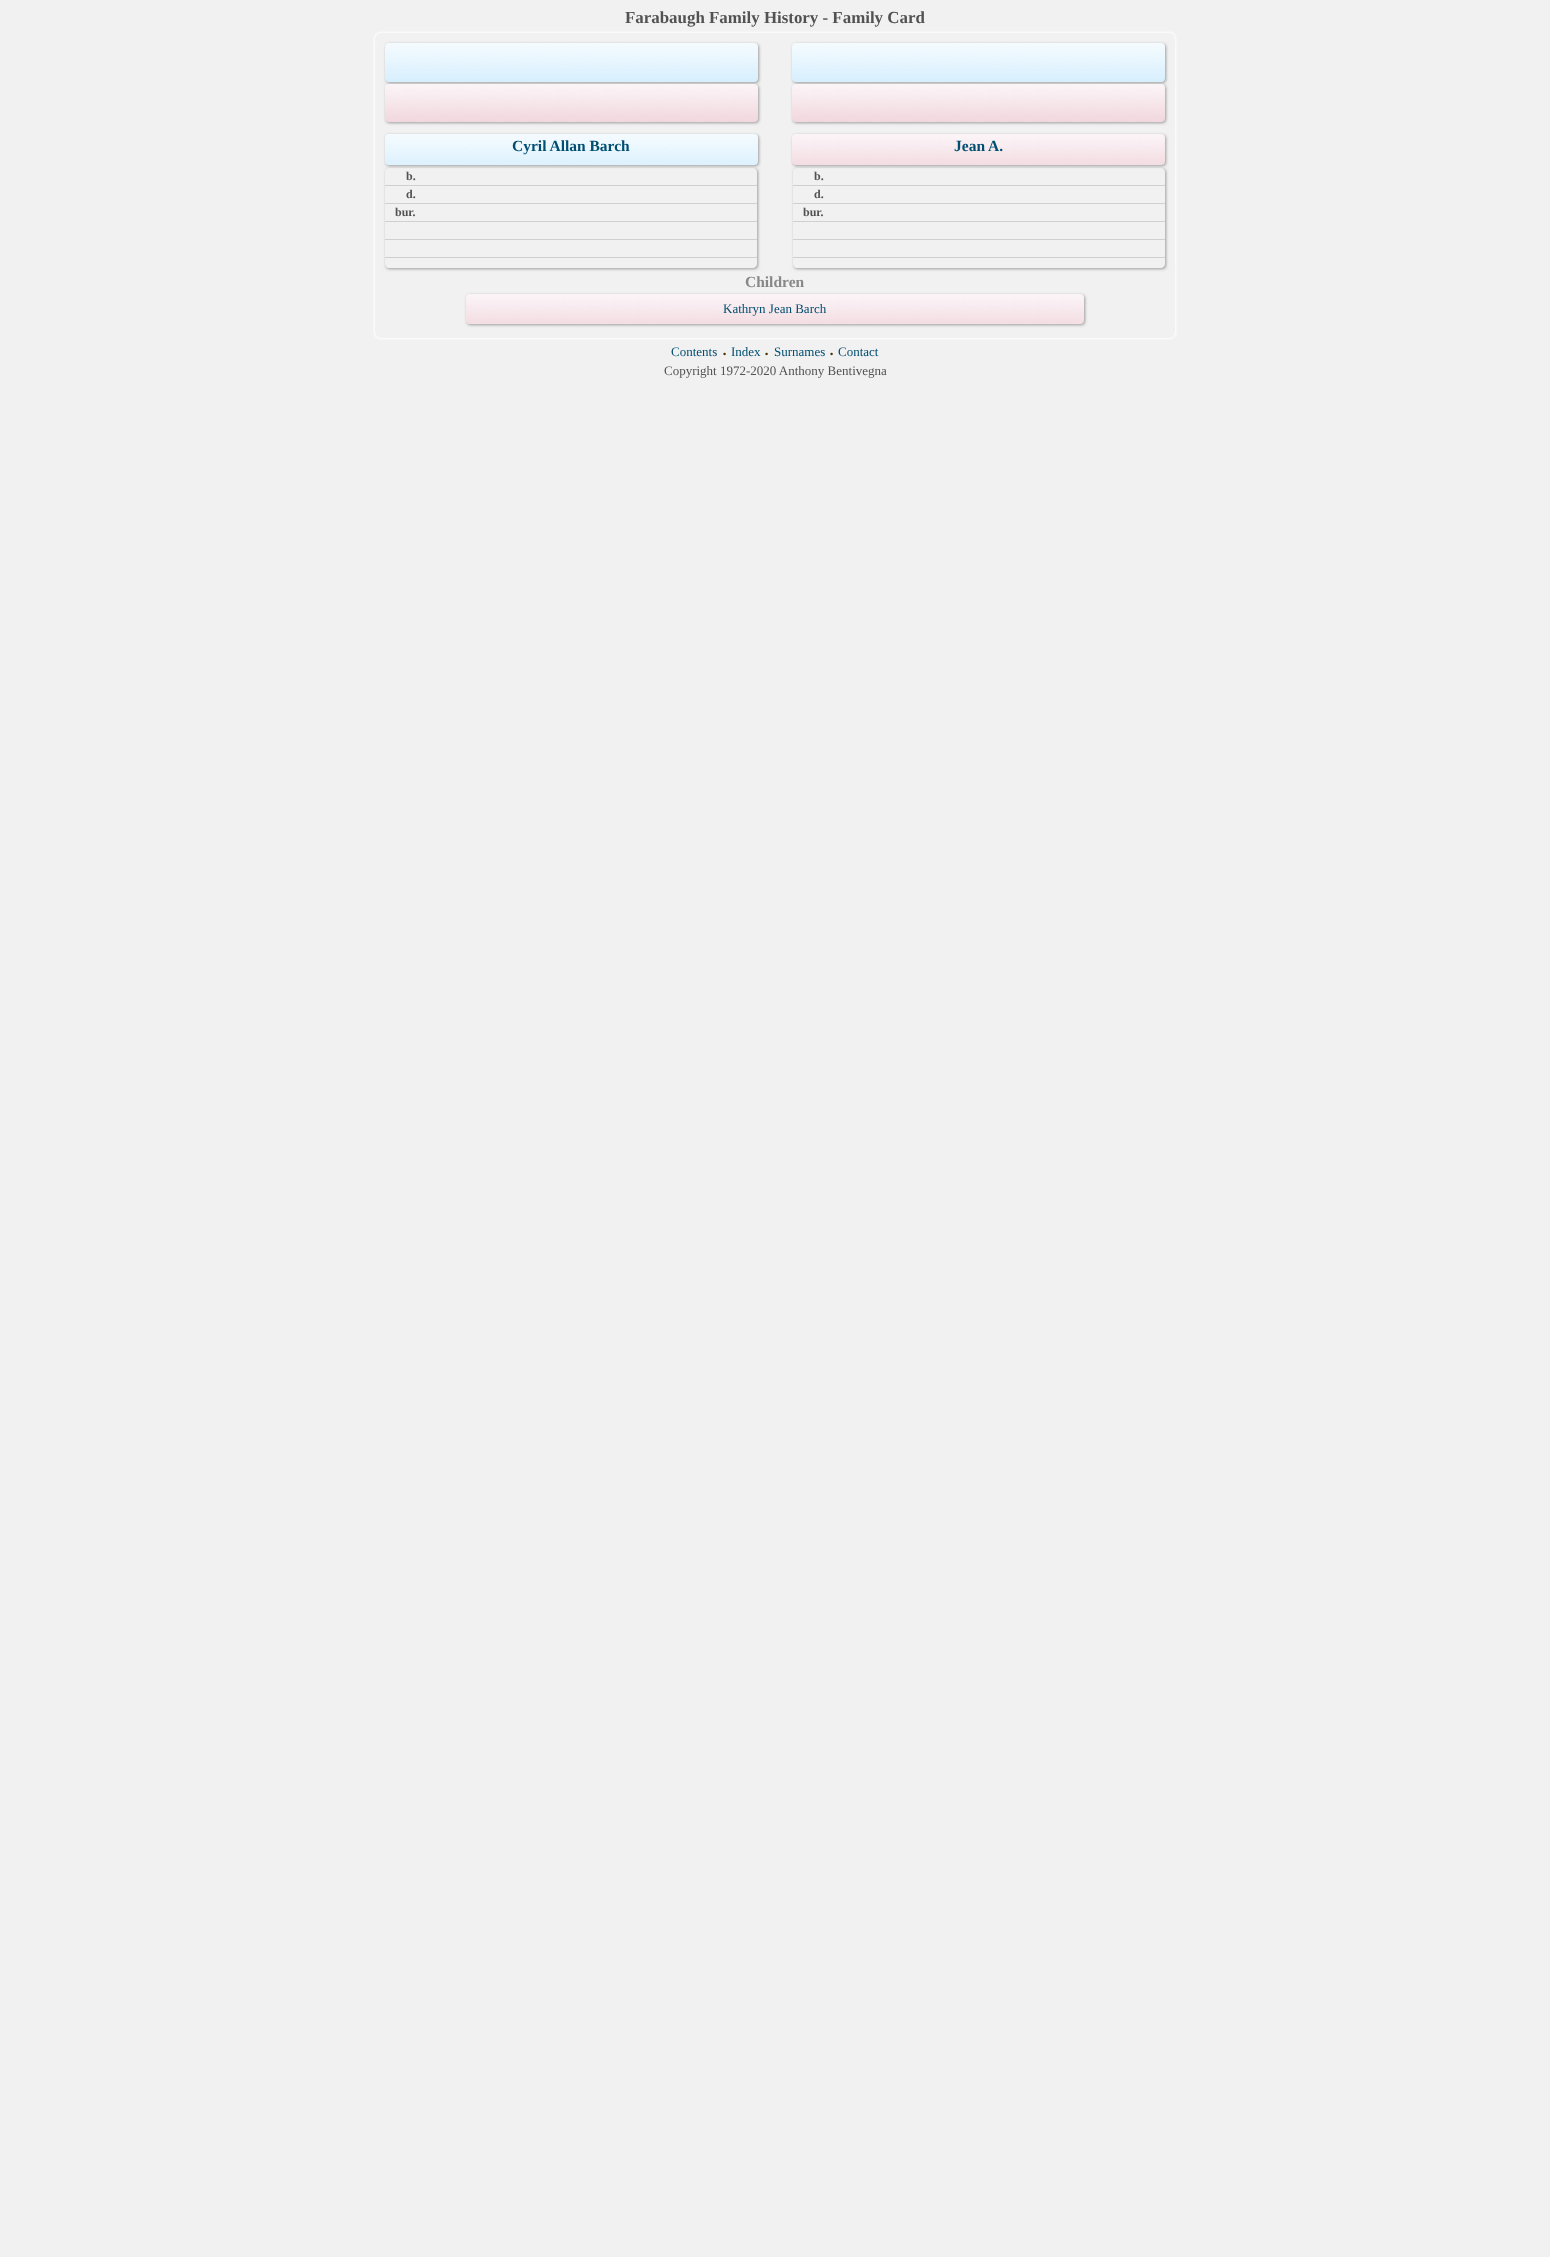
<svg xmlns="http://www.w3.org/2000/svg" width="1550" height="2257">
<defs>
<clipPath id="clip1"><path d="M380 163h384v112h-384zm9 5h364c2 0 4 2 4 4v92c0 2-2 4-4 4h-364c-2 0-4-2-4-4v-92c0-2 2-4 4-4z" clip-rule="evenodd"/></clipPath>
<clipPath id="clip2"><path d="M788 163h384v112h-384zm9 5h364c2 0 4 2 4 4v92c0 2-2 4-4 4h-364c-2 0-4-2-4-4v-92c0-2 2-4 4-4z" clip-rule="evenodd"/></clipPath>
</defs>
<rect width="100%" height="100%" fill="#f1f1f1"/>
<text x="625" y="23" style="font-family:Liberation Serif;font-size:16.9px;font-weight:bold;fill:#525252">Farabaugh Family History - Family Card</text>
<rect x="374" y="32" width="802" height="307" rx="7" fill="#fff" filter="blur(1px)"/>
<rect x="375" y="33" width="800" height="305" rx="6" fill="#f1f1f1"/>
<rect x="386" y="44" width="373" height="39" rx="4" fill="#9b9b9b" filter="blur(1.5px)"/>
<image x="385" y="43" width="373" height="39" href="media/1.png"/>
<rect x="793" y="44" width="373" height="39" rx="4" fill="#9b9b9b" filter="blur(1.5px)"/>
<image x="792" y="43" width="373" height="39" href="media/1.png"/>
<rect x="386" y="85" width="373" height="38" rx="4" fill="#9b9b9b" filter="blur(1.5px)"/>
<image x="385" y="84" width="373" height="38" href="media/2.png"/>
<rect x="793" y="85" width="373" height="38" rx="4" fill="#9b9b9b" filter="blur(1.5px)"/>
<image x="792" y="84" width="373" height="38" href="media/2.png"/>
<rect x="386" y="135" width="373" height="31" rx="4" fill="#9b9b9b" filter="blur(1.5px)"/>
<image x="385" y="134" width="373" height="31" href="media/3.png"/>
<text x="512" y="151" style="font-family:Liberation Serif;font-size:15.5px;font-weight:bold;fill:#014e71">Cyril Allan Barch</text>
<rect x="793" y="135" width="373" height="31" rx="4" fill="#9b9b9b" filter="blur(1.5px)"/>
<image x="792" y="134" width="373" height="31" href="media/4.png"/>
<text x="954" y="151" style="font-family:Liberation Serif;font-size:15.5px;font-weight:bold;fill:#014e71">Jean A.</text>
<g clip-path="url(#clip1)">
<rect x="386" y="169" width="372" height="100" rx="4" fill="#9b9b9b" filter="blur(1.5px)"/>
</g>
<rect x="385" y="185" width="372" height="1" fill="#d0d0d0"/>
<text x="406" y="180" style="font-family:Liberation Serif;font-size:12px;font-weight:bold;fill:#525252">b.</text>
<rect x="385" y="203" width="372" height="1" fill="#d0d0d0"/>
<text x="406" y="198" style="font-family:Liberation Serif;font-size:12px;font-weight:bold;fill:#525252">d.</text>
<rect x="385" y="221" width="372" height="1" fill="#d0d0d0"/>
<text x="395" y="216" style="font-family:Liberation Serif;font-size:12px;font-weight:bold;fill:#525252">bur.</text>
<rect x="385" y="239" width="372" height="1" fill="#d0d0d0"/>
<rect x="385" y="257" width="372" height="1" fill="#d0d0d0"/>
<g clip-path="url(#clip2)">
<rect x="794" y="169" width="372" height="100" rx="4" fill="#9b9b9b" filter="blur(1.5px)"/>
</g>
<rect x="793" y="185" width="372" height="1" fill="#d0d0d0"/>
<text x="814" y="180" style="font-family:Liberation Serif;font-size:12px;font-weight:bold;fill:#525252">b.</text>
<rect x="793" y="203" width="372" height="1" fill="#d0d0d0"/>
<text x="814" y="198" style="font-family:Liberation Serif;font-size:12px;font-weight:bold;fill:#525252">d.</text>
<rect x="793" y="221" width="372" height="1" fill="#d0d0d0"/>
<text x="803" y="216" style="font-family:Liberation Serif;font-size:12px;font-weight:bold;fill:#525252">bur.</text>
<rect x="793" y="239" width="372" height="1" fill="#d0d0d0"/>
<rect x="793" y="257" width="372" height="1" fill="#d0d0d0"/>
<text x="745" y="287" style="font-family:Liberation Serif;font-size:15.5px;font-weight:bold;fill:#888">Children</text>
<rect x="467" y="295" width="618" height="30" rx="4" fill="#9b9b9b" filter="blur(1.5px)"/>
<image x="466" y="294" width="618" height="30" href="media/5.png"/>
<text x="723" y="313" style="font-family:Liberation Serif;font-size:13px;fill:#014e71">Kathryn Jean Barch</text>
<text x="671" y="356" style="font-family:Liberation Serif;font-size:13px;fill:#014e71">Contents</text>
<text x="722" y="359" style="font-family:Liberation Serif;font-size:15.5px;font-weight:bold;fill:#4d3300">·</text>
<text x="731" y="356" style="font-family:Liberation Serif;font-size:13px;fill:#014e71">Index</text>
<text x="764" y="359" style="font-family:Liberation Serif;font-size:15.5px;font-weight:bold;fill:#4d3300">·</text>
<text x="774" y="356" style="font-family:Liberation Serif;font-size:13px;fill:#014e71">Surnames</text>
<text x="829" y="359" style="font-family:Liberation Serif;font-size:15.5px;font-weight:bold;fill:#4d3300">·</text>
<text x="838" y="356" style="font-family:Liberation Serif;font-size:13px;fill:#014e71">Contact</text>
<text x="664" y="375" style="font-family:Liberation Serif;font-size:13px;fill:#525252">Copyright 1972-2020 Anthony Bentivegna</text>
</svg>
